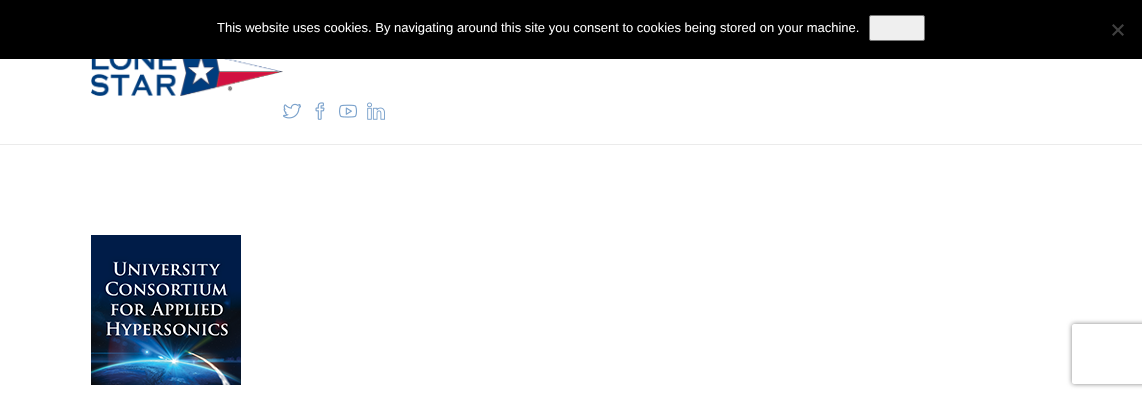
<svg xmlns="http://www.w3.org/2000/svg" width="1142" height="398">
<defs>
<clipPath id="clip1"><path d="M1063 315h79v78h-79zm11 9h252c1 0 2 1 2 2v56c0 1-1 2-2 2h-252c-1 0-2-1-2-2v-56c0-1 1-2 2-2z" clip-rule="evenodd"/></clipPath>
</defs>
<rect width="100%" height="100%" fill="#fff"/>
<rect width="1142" height="59" fill="#000"/>
<text x="217" y="32" style="font-family:Liberation Sans;font-size:13px;fill:#fff">This website uses cookies. By navigating around this site you consent to cookies being stored on your machine.</text>
<rect x="869.5" y="15.5" width="55" height="25" rx="1.5" fill="#efefef" stroke="#767676"/>
<path d="M1122.5 24l1.5 1.5l-10.5 10.5l-1.5-1.5z" fill="#404040"/>
<path d="M1112 25.5l1.5-1.5l10.5 10.5l-1.5 1.5z" fill="#404040"/>
<rect y="144" width="1142" height="1" fill="#ebebeb"/>
<image x="91" y="59" width="192" height="37" href="media/1.png"/>
<image x="283" y="103" width="18" height="16" href="media/2.png"/>
<image x="315" y="102" width="10" height="18" href="media/3.png"/>
<image x="339" y="104" width="18" height="14" href="media/4.png"/>
<image x="367" y="102" width="18" height="18" href="media/5.png"/>
<image x="91" y="235" width="150" height="150" href="media/6.png"/>
<g clip-path="url(#clip1)">
<rect x="1072" y="324" width="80" height="60" rx="2" fill="#808080" filter="blur(2.5px)"/>
</g>
</svg>
